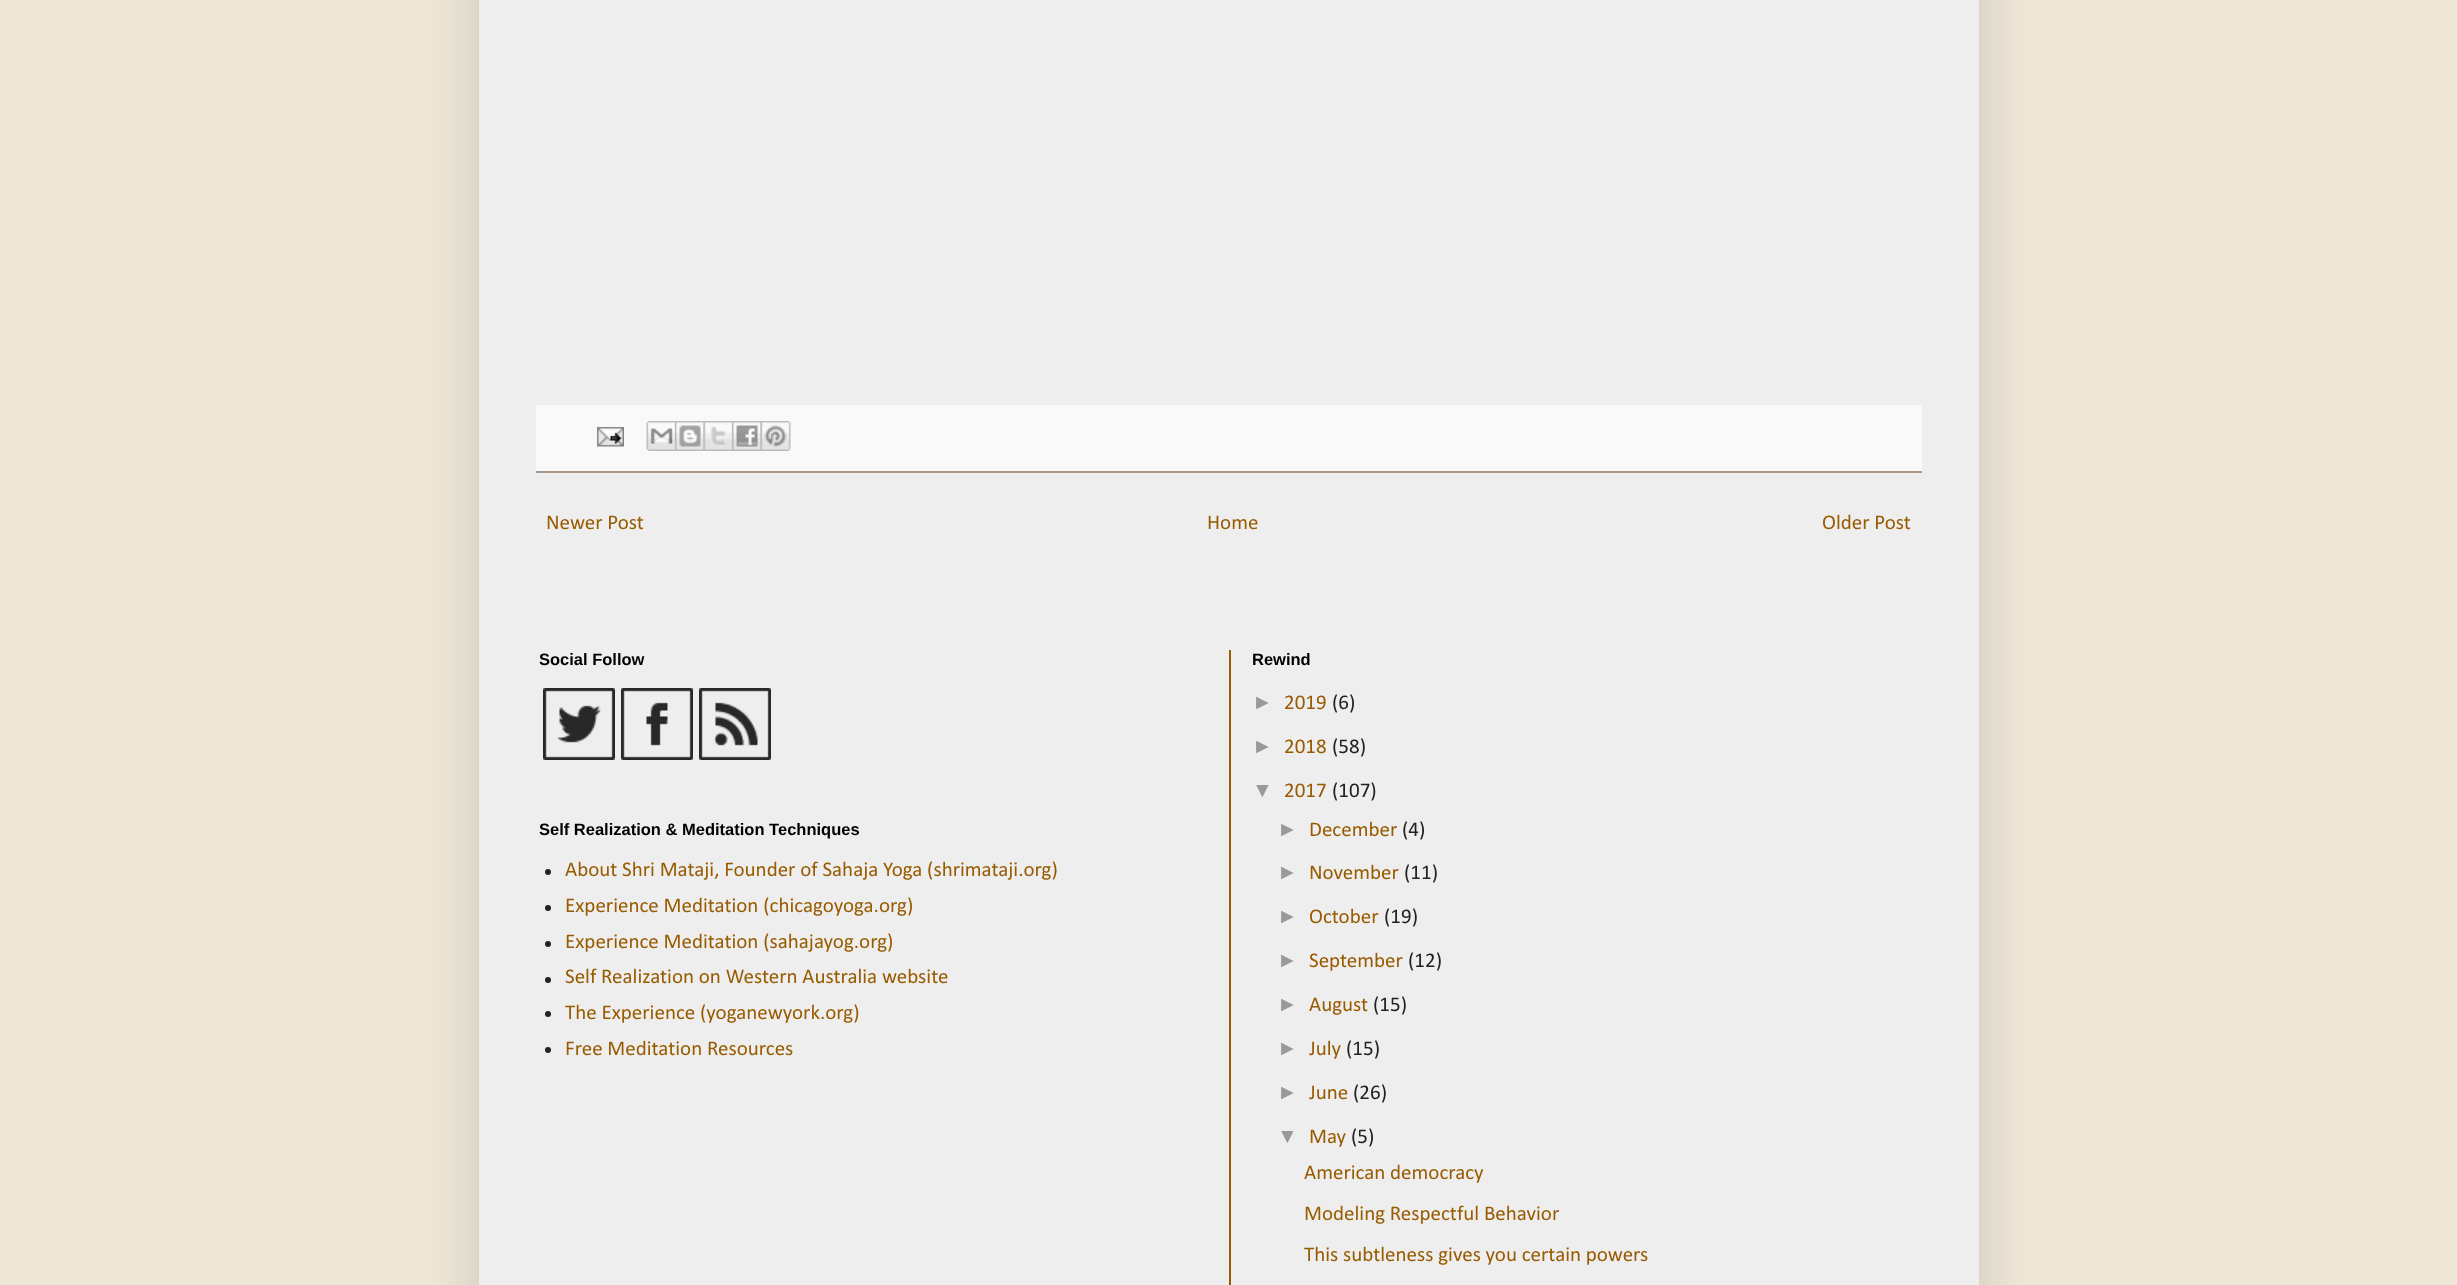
<svg xmlns="http://www.w3.org/2000/svg" width="2457" height="1285">
<rect width="100%" height="100%" fill="#efe8d9"/>
<rect x="479" y="-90" width="1500" height="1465" fill="#00000026" filter="blur(30px)"/>
<rect x="479" width="1500" height="1285" fill="#eee"/>
<rect x="536" y="405" width="1386" height="66" fill="#f9f9f9"/>
<rect x="536" y="471" width="1386" height="2" fill="#a79887"/>
<image x="597" y="427" width="27" height="20" href="media/1.png"/>
<image x="646" y="421" width="29" height="30" href="media/2.png"/>
<image x="675" y="421" width="29" height="30" href="media/3.png"/>
<image x="703" y="421" width="29" height="30" href="media/4.png"/>
<image x="732" y="421" width="29" height="30" href="media/5.png"/>
<image x="760" y="421" width="31" height="30" href="media/6.png"/>
<text x="546" y="529" style="font-family:Calibri;font-size:21px;fill:#995b00">Newer Post</text>
<text x="1207" y="529" style="font-family:Calibri;font-size:21px;fill:#995b00">Home</text>
<text x="1822" y="529" style="font-family:Calibri;font-size:21px;fill:#995b00">Older Post</text>
<text x="539" y="665" style="font-family:Liberation Sans;font-size:16.5px;font-weight:bold;fill:#000">Social Follow</text>
<image x="543" y="688" width="72" height="72" href="media/7.png"/>
<image x="621" y="688" width="72" height="72" href="media/8.png"/>
<image x="699" y="688" width="72" height="72" href="media/9.png"/>
<text x="539" y="835" style="font-family:Liberation Sans;font-size:16.5px;font-weight:bold;fill:#000">Self Realization &amp; Meditation Techniques</text>
<circle cx="548" cy="872" r="3" fill="#222"/>
<text x="565" y="876" style="font-family:Calibri;font-size:21px;fill:#995b00">About Shri Mataji, Founder of Sahaja Yoga (shrimataji.org)</text>
<circle cx="548" cy="908" r="3" fill="#222"/>
<text x="565" y="912" style="font-family:Calibri;font-size:21px;fill:#995b00">Experience Meditation (chicagoyoga.org)</text>
<circle cx="548" cy="944" r="3" fill="#222"/>
<text x="565" y="948" style="font-family:Calibri;font-size:21px;fill:#995b00">Experience Meditation (sahajayog.org)</text>
<circle cx="548" cy="980" r="3" fill="#222"/>
<text x="565" y="983" style="font-family:Calibri;font-size:21px;fill:#995b00">Self Realization on Western Australia website</text>
<circle cx="548" cy="1014" r="3" fill="#222"/>
<text x="565" y="1019" style="font-family:Calibri;font-size:21px;fill:#995b00">The Experience (yoganewyork.org)</text>
<circle cx="548" cy="1050" r="3" fill="#222"/>
<text x="565" y="1055" style="font-family:Calibri;font-size:21px;fill:#995b00">Free Meditation Resources</text>
<rect x="1229" y="650" width="2" height="635" fill="#995b00"/>
<text x="1252" y="665" style="font-family:Liberation Sans;font-size:16.5px;font-weight:bold;fill:#000">Rewind</text>
<text x="1252" y="709" style="font-family:Liberation Sans;font-size:21px;fill:#999">►</text>
<text x="1284" y="709" style="font-family:Calibri;font-size:21px;fill:#995b00">2019</text>
<text x="1332" y="709" style="font-family:Calibri;font-size:21px;fill:#222">(6)</text>
<text x="1252" y="753" style="font-family:Liberation Sans;font-size:21px;fill:#999">►</text>
<text x="1284" y="753" style="font-family:Calibri;font-size:21px;fill:#995b00">2018</text>
<text x="1332" y="753" style="font-family:Calibri;font-size:21px;fill:#222">(58)</text>
<text x="1252" y="797" style="font-family:Liberation Sans;font-size:21px;fill:#999">▼</text>
<text x="1284" y="797" style="font-family:Calibri;font-size:21px;fill:#995b00">2017</text>
<text x="1332" y="797" style="font-family:Calibri;font-size:21px;fill:#222">(107)</text>
<text x="1277" y="836" style="font-family:Liberation Sans;font-size:21px;fill:#999">►</text>
<text x="1309" y="836" style="font-family:Calibri;font-size:21px;fill:#995b00">December</text>
<text x="1402" y="836" style="font-family:Calibri;font-size:21px;fill:#222">(4)</text>
<text x="1277" y="879" style="font-family:Liberation Sans;font-size:21px;fill:#999">►</text>
<text x="1309" y="879" style="font-family:Calibri;font-size:21px;fill:#995b00">November</text>
<text x="1404" y="879" style="font-family:Calibri;font-size:21px;fill:#222">(11)</text>
<text x="1277" y="923" style="font-family:Liberation Sans;font-size:21px;fill:#999">►</text>
<text x="1309" y="923" style="font-family:Calibri;font-size:21px;fill:#995b00">October</text>
<text x="1384" y="923" style="font-family:Calibri;font-size:21px;fill:#222">(19)</text>
<text x="1277" y="967" style="font-family:Liberation Sans;font-size:21px;fill:#999">►</text>
<text x="1309" y="967" style="font-family:Calibri;font-size:21px;fill:#995b00">September</text>
<text x="1408" y="967" style="font-family:Calibri;font-size:21px;fill:#222">(12)</text>
<text x="1277" y="1011" style="font-family:Liberation Sans;font-size:21px;fill:#999">►</text>
<text x="1309" y="1011" style="font-family:Calibri;font-size:21px;fill:#995b00">August</text>
<text x="1373" y="1011" style="font-family:Calibri;font-size:21px;fill:#222">(15)</text>
<text x="1277" y="1055" style="font-family:Liberation Sans;font-size:21px;fill:#999">►</text>
<text x="1309" y="1055" style="font-family:Calibri;font-size:21px;fill:#995b00">July</text>
<text x="1346" y="1055" style="font-family:Calibri;font-size:21px;fill:#222">(15)</text>
<text x="1277" y="1099" style="font-family:Liberation Sans;font-size:21px;fill:#999">►</text>
<text x="1309" y="1099" style="font-family:Calibri;font-size:21px;fill:#995b00">June</text>
<text x="1353" y="1099" style="font-family:Calibri;font-size:21px;fill:#222">(26)</text>
<text x="1277" y="1143" style="font-family:Liberation Sans;font-size:21px;fill:#999">▼</text>
<text x="1309" y="1143" style="font-family:Calibri;font-size:21px;fill:#995b00">May</text>
<text x="1351" y="1143" style="font-family:Calibri;font-size:21px;fill:#222">(5)</text>
<text x="1304" y="1179" style="font-family:Calibri;font-size:21px;fill:#995b00">American democracy</text>
<text x="1304" y="1220" style="font-family:Calibri;font-size:21px;fill:#995b00">Modeling Respectful Behavior</text>
<text x="1304" y="1261" style="font-family:Calibri;font-size:21px;fill:#995b00">This subtleness gives you certain powers</text>
</svg>
